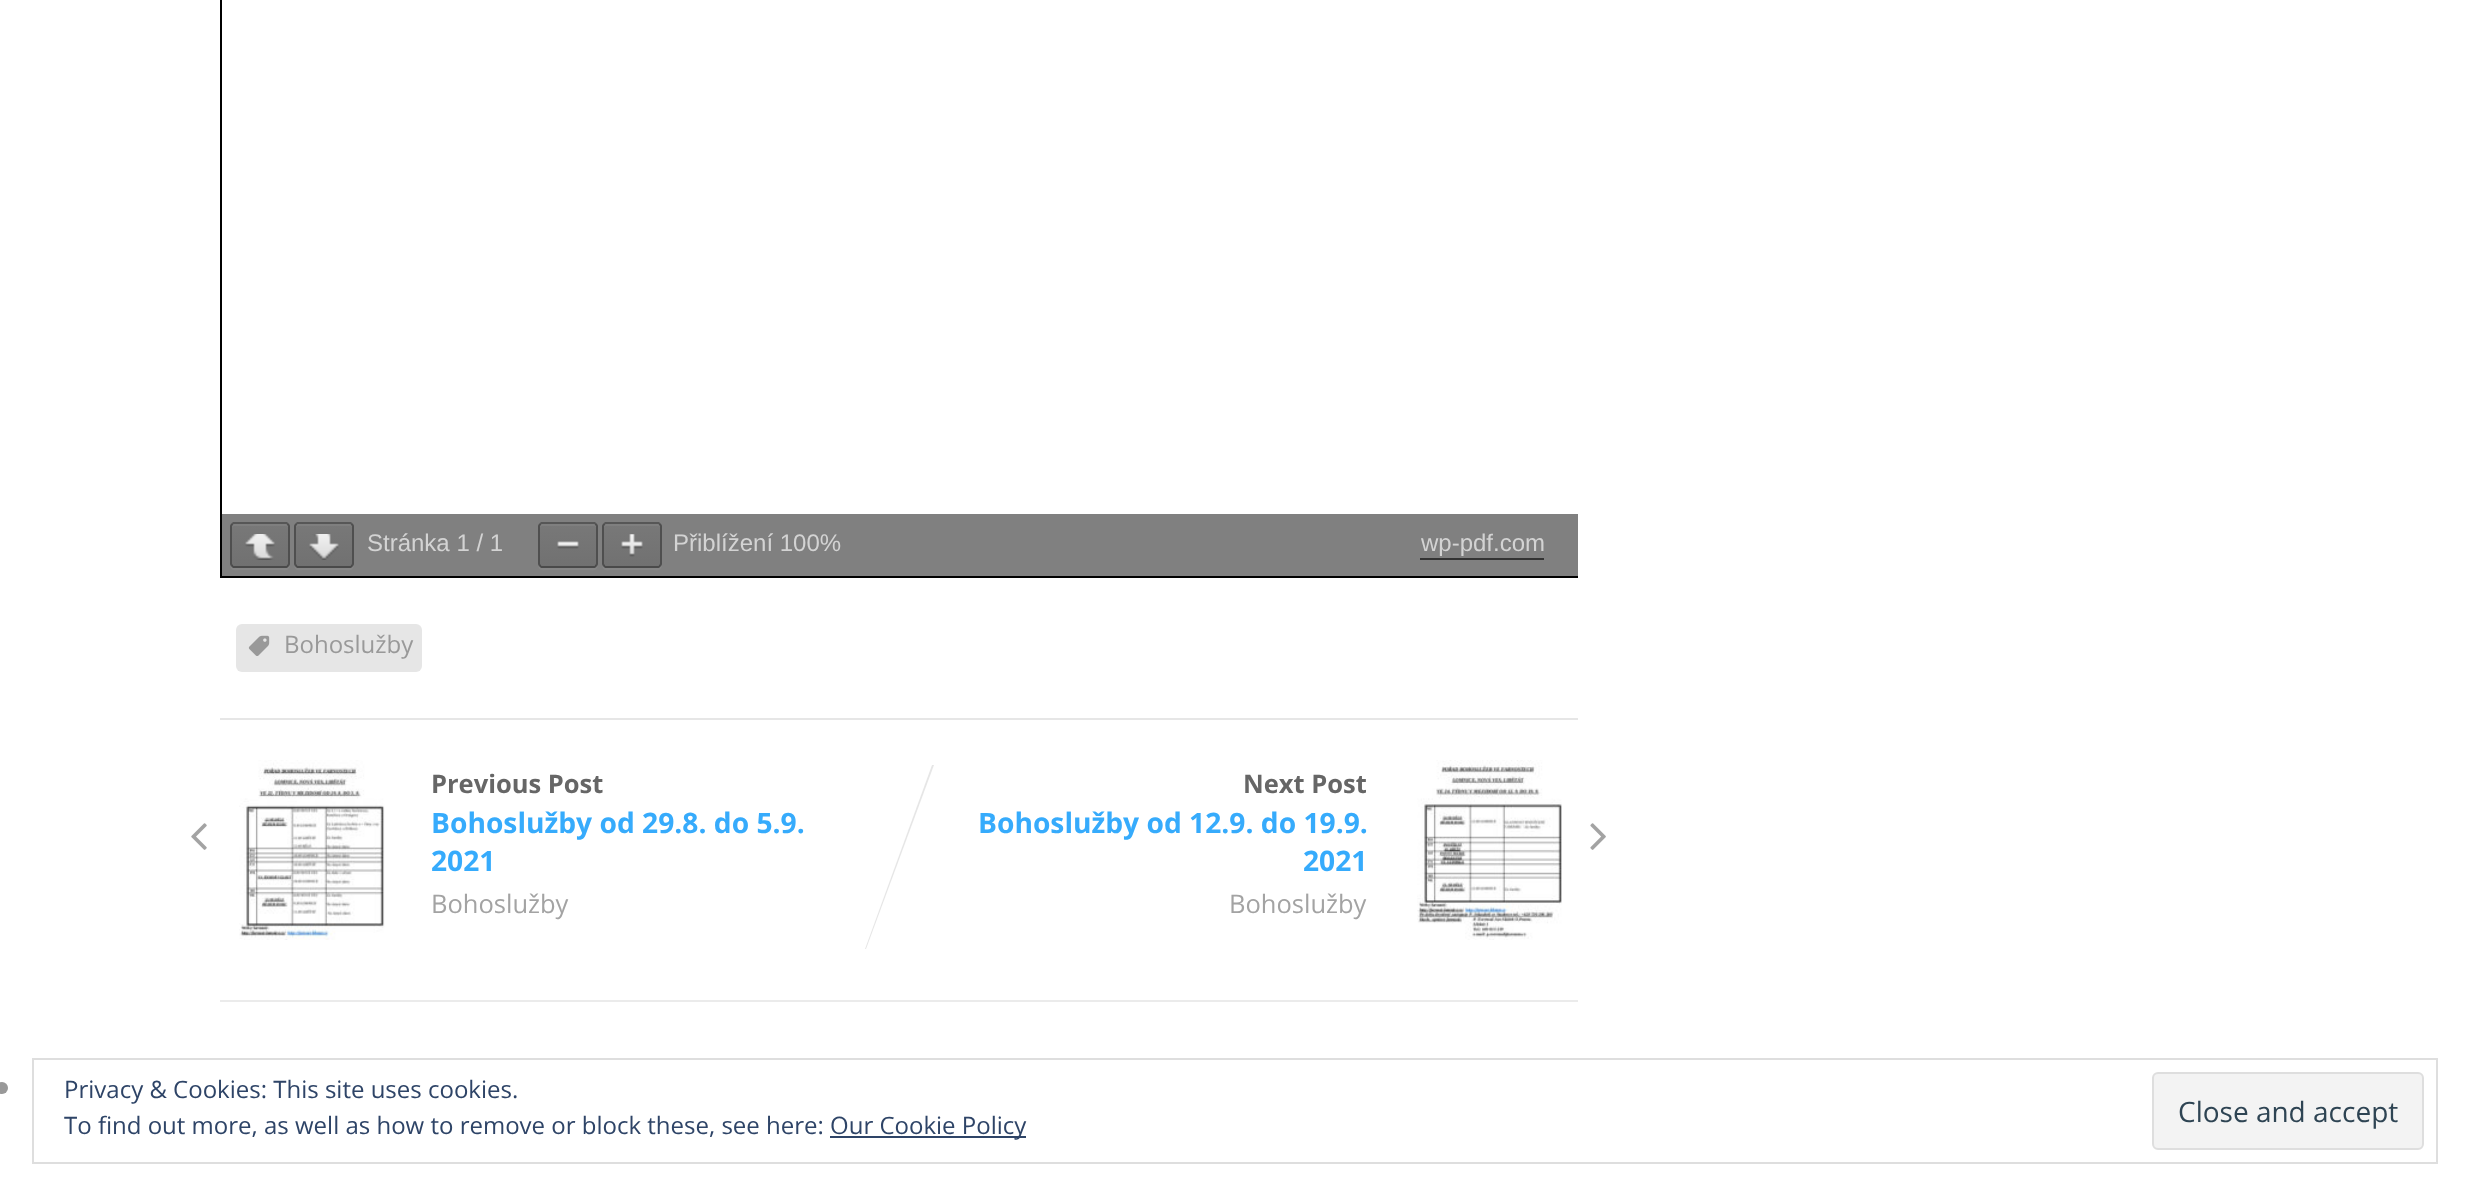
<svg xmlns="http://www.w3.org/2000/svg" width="2470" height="1195">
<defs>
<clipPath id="clip1"><rect x="220" width="1358" height="578"/></clipPath>
<linearGradient id="g1" gradientUnits="userSpaceOnUse" x1="260" y1="524" x2="260" y2="566"><stop offset="0" stop-color="#787878"/><stop offset="1" stop-color="#717171"/></linearGradient>
<linearGradient id="g2" gradientUnits="userSpaceOnUse" x1="324" y1="524" x2="324" y2="566"><stop offset="0" stop-color="#787878"/><stop offset="1" stop-color="#717171"/></linearGradient>
<linearGradient id="g3" gradientUnits="userSpaceOnUse" x1="568" y1="524" x2="568" y2="566"><stop offset="0" stop-color="#787878"/><stop offset="1" stop-color="#717171"/></linearGradient>
<linearGradient id="g4" gradientUnits="userSpaceOnUse" x1="632" y1="524" x2="632" y2="566"><stop offset="0" stop-color="#787878"/><stop offset="1" stop-color="#717171"/></linearGradient>
</defs>
<rect width="100%" height="100%" fill="#fff"/>
<g clip-path="url(#clip1)">
<rect x="221" y="-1" width="1358" height="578" fill="none" stroke="#000" stroke-width="2"/>
</g>
<rect x="222" y="514" width="1356" height="62" fill="#808080"/>
<path d="M230 564c0 8 5 6 13 6h34c8 0 13 2 13-6c0 2-2 4-4 4h-52c-2 0-4-2-4-4z" fill="#868686"/>
<rect x="232" y="524" width="56" height="42" rx="2" fill="url(#g1)"/>
<path d="M234 526h52c1 0 2 1 2 2c0-6-4-4-11-4h-34c-7 0-11-2-11 4c0-1 1-2 2-2z" fill="#7f7f7f"/>
<path d="M232 524l1.5-1h53l1.5 1" fill="none" stroke="#00000052" stroke-width="2"/>
<path d="M288 524l1 2v38l-1 2" fill="none" stroke="#00000061" stroke-width="2"/>
<path d="M288 566l-1.5 1h-53l-1.5-1" fill="none" stroke="#0000006b" stroke-width="2"/>
<path d="M232 566l-1-2v-38l1-2" fill="none" stroke="#00000061" stroke-width="2"/>
<image x="245" y="534" width="30" height="26" href="media/1.png"/>
<path d="M294 564c0 8 5 6 13 6h34c8 0 13 2 13-6c0 2-2 4-4 4h-52c-2 0-4-2-4-4z" fill="#868686"/>
<rect x="296" y="524" width="56" height="42" rx="2" fill="url(#g2)"/>
<path d="M298 526h52c1 0 2 1 2 2c0-6-4-4-11-4h-34c-7 0-11-2-11 4c0-1 1-2 2-2z" fill="#7f7f7f"/>
<path d="M296 524l1.5-1h53l1.5 1" fill="none" stroke="#00000052" stroke-width="2"/>
<path d="M352 524l1 2v38l-1 2" fill="none" stroke="#00000061" stroke-width="2"/>
<path d="M352 566l-1.5 1h-53l-1.5-1" fill="none" stroke="#0000006b" stroke-width="2"/>
<path d="M296 566l-1-2v-38l1-2" fill="none" stroke="#00000061" stroke-width="2"/>
<image x="309" y="534" width="30" height="26" href="media/2.png"/>
<text x="367" y="551" style="font-family:Liberation Sans;font-size:24px;fill:#d3d3d3">Stránka 1 / 1</text>
<path d="M538 564c0 8 5 6 13 6h34c8 0 13 2 13-6c0 2-2 4-4 4h-52c-2 0-4-2-4-4z" fill="#868686"/>
<rect x="540" y="524" width="56" height="42" rx="2" fill="url(#g3)"/>
<path d="M542 526h52c1 0 2 1 2 2c0-6-4-4-11-4h-34c-7 0-11-2-11 4c0-1 1-2 2-2z" fill="#7f7f7f"/>
<path d="M540 524l1.5-1h53l1.5 1" fill="none" stroke="#00000052" stroke-width="2"/>
<path d="M596 524l1 2v38l-1 2" fill="none" stroke="#00000061" stroke-width="2"/>
<path d="M596 566l-1.5 1h-53l-1.5-1" fill="none" stroke="#0000006b" stroke-width="2"/>
<path d="M540 566l-1-2v-38l1-2" fill="none" stroke="#00000061" stroke-width="2"/>
<image x="557" y="541" width="22" height="8" href="media/3.png"/>
<path d="M602 564c0 8 5 6 13 6h34c8 0 13 2 13-6c0 2-2 4-4 4h-52c-2 0-4-2-4-4z" fill="#868686"/>
<rect x="604" y="524" width="56" height="42" rx="2" fill="url(#g4)"/>
<path d="M606 526h52c1 0 2 1 2 2c0-6-4-4-11-4h-34c-7 0-11-2-11 4c0-1 1-2 2-2z" fill="#7f7f7f"/>
<path d="M604 524l1.5-1h53l1.5 1" fill="none" stroke="#00000052" stroke-width="2"/>
<path d="M660 524l1 2v38l-1 2" fill="none" stroke="#00000061" stroke-width="2"/>
<path d="M660 566l-1.5 1h-53l-1.5-1" fill="none" stroke="#0000006b" stroke-width="2"/>
<path d="M604 566l-1-2v-38l1-2" fill="none" stroke="#00000061" stroke-width="2"/>
<image x="621" y="534" width="22" height="23" href="media/4.png"/>
<text x="673" y="551" style="font-family:Liberation Sans;font-size:24px;fill:#d3d3d3">Přiblížení 100%</text>
<text x="1421" y="551" style="font-family:Liberation Sans;font-size:24px;fill:#d3d3d3">wp-pdf.com</text>
<rect x="1420" y="558" width="124" height="2" fill="#333"/>
<rect x="220" y="718" width="1358" height="2" fill="#e6e6e6"/>
<rect x="236" y="624" width="186" height="48" rx="6" fill="#e6e6e6"/>
<image x="248" y="635" width="22" height="21" href="media/5.png"/>
<text x="284" y="653" style="font-family:Open Sans;font-size:24px;fill:#999">Bohoslužby</text>
<rect x="220" y="1000" width="1358" height="2" fill="#ebebeb"/>
<image x="239" y="760" width="146" height="180" href="media/6.png"/>
<text x="431" y="793" style="font-family:Open Sans;font-size:25.5px;font-weight:bold;fill:#666">Previous Post</text>
<image x="191" y="823" width="16" height="27" href="media/7.png"/>
<text x="431" y="833" style="font-family:Open Sans;font-size:28.2px;font-weight:bold;fill:#36abfc">Bohoslužby od 29.8. do 5.9.</text>
<text x="431" y="871" style="font-family:Open Sans;font-size:28.2px;font-weight:bold;fill:#36abfc">2021</text>
<text x="431" y="913" style="font-family:Open Sans;font-size:25.5px;fill:#a3a3a3">Bohoslužby</text>
<path d="M932 765h2l-68 184h-1z" fill="#e6e6e6"/>
<text x="1243" y="793" style="font-family:Open Sans;font-size:25.5px;font-weight:bold;fill:#666">Next Post</text>
<image x="1417" y="760" width="145" height="180" href="media/8.png"/>
<text x="978" y="833" style="font-family:Open Sans;font-size:28.2px;font-weight:bold;fill:#36abfc">Bohoslužby od 12.9. do 19.9.</text>
<text x="1303" y="871" style="font-family:Open Sans;font-size:28.2px;font-weight:bold;fill:#36abfc">2021</text>
<image x="1590" y="823" width="16" height="27" href="media/9.png"/>
<text x="1229" y="913" style="font-family:Open Sans;font-size:25.5px;fill:#a3a3a3">Bohoslužby</text>
<circle cx="2" cy="1088" r="6" fill="#999"/>
<rect x="33" y="1059" width="2404" height="104" fill="none" stroke="#dedede" stroke-width="2"/>
<text x="64" y="1098" style="font-family:Open Sans;font-size:24px;fill:#2e4467">Privacy &amp; Cookies: This site uses cookies.</text>
<text x="64" y="1134" style="font-family:Open Sans;font-size:24px;fill:#2e4467">To find out more, as well as how to remove or block these, see here:</text>
<rect x="830" y="1136" width="196" height="2" fill="#2e4467"/>
<text x="830" y="1134" style="font-family:Open Sans;font-size:24px;fill:#2e4467">Our Cookie Policy</text>
<rect x="2153" y="1073" width="270" height="76" rx="5" fill="#f3f3f3" stroke="#dedede" stroke-width="2"/>
<text x="2178" y="1122" style="font-family:Open Sans;font-size:28px;fill:#2e4453">Close and accept</text>
</svg>
